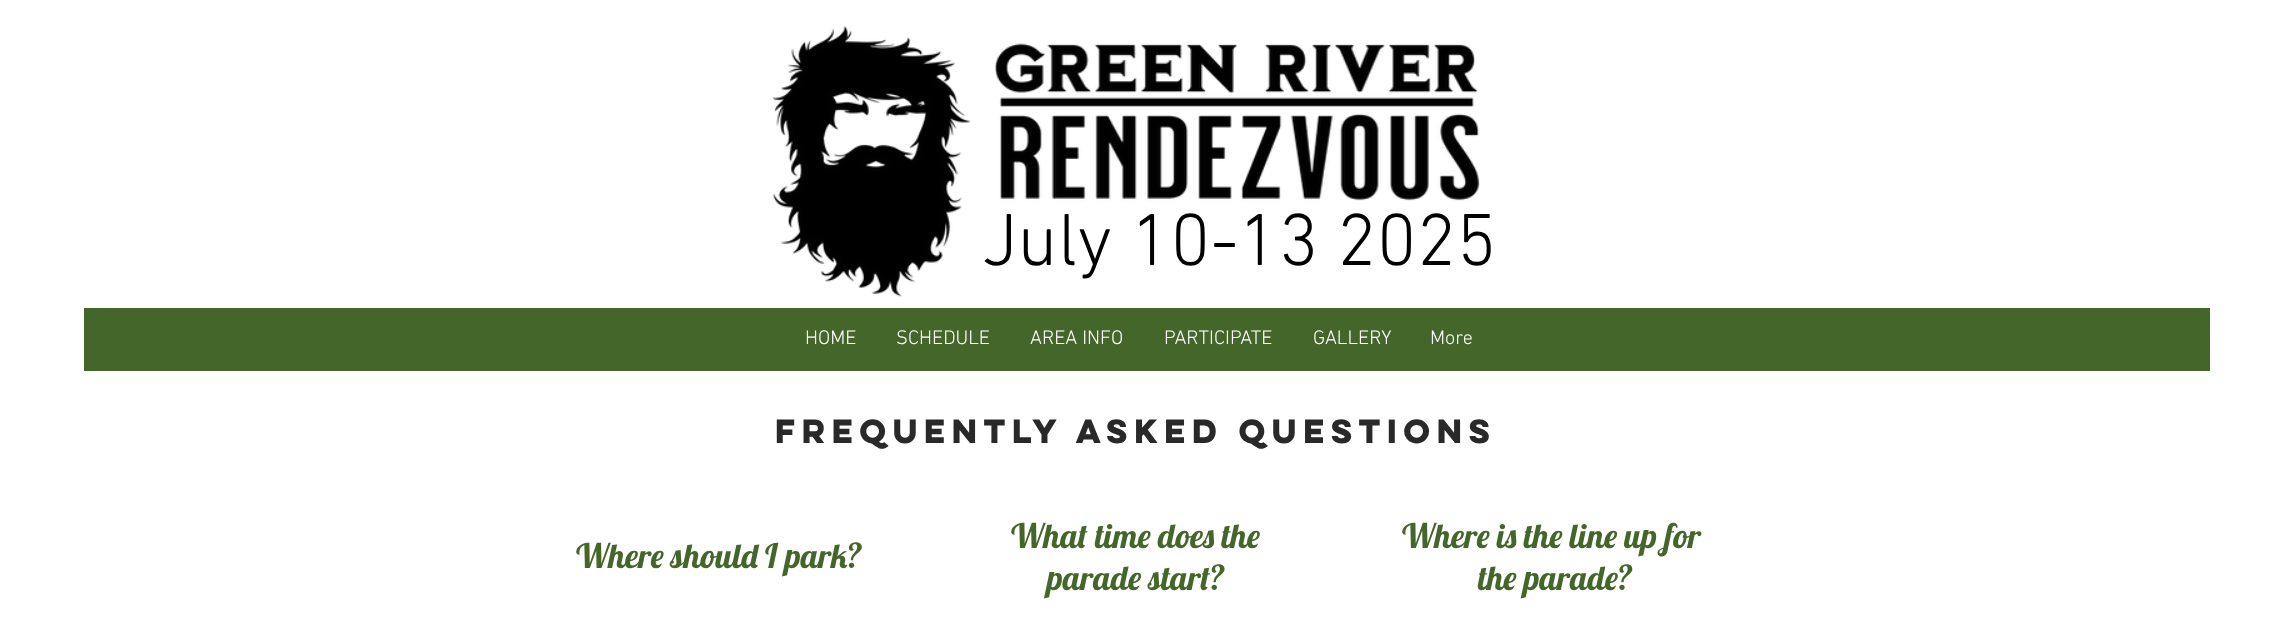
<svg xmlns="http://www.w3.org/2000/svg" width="2274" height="641">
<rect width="100%" height="100%" fill="#fff"/>
<image x="772" y="26" width="199" height="271" href="media/1.png"/>
<image x="995" y="43" width="485" height="158" href="media/2.png"/>
<text x="982" y="265" style="font-family:'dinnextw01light';font-size:75px;font-weight:300;fill:#000">July 10-13 2025</text>
<rect x="84" y="308" width="2126" height="63" fill="#45662b"/>
<text x="805" y="344" style="font-family:'dinnextw01light';font-size:20px;font-weight:300;fill:#fff">HOME</text>
<text x="896" y="344" style="font-family:'dinnextw01light';font-size:20px;font-weight:300;fill:#fff">SCHEDULE</text>
<text x="1030" y="344" style="font-family:'dinnextw01light';font-size:20px;font-weight:300;fill:#fff">AREA INFO</text>
<text x="1164" y="344" style="font-family:'dinnextw01light';font-size:20px;font-weight:300;fill:#fff">PARTICIPATE</text>
<text x="1313" y="344" style="font-family:'dinnextw01light';font-size:20px;font-weight:300;fill:#fff">GALLERY</text>
<text x="1430" y="344" style="font-family:'dinnextw01light';font-size:20px;font-weight:300;fill:#fff">More</text>
<text x="775" y="443" style="font-family:'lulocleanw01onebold';font-size:30px;font-weight:bold;fill:#292929">Frequently Asked Questions</text>
<text x="576" y="568" style="font-family:Lobster;font-size:33.75px;fill:#45662b">Where should I park?</text>
<text x="1011" y="548" style="font-family:Lobster;font-size:33.75px;fill:#45662b">What time does the</text>
<text x="1047" y="590" style="font-family:Lobster;font-size:33.75px;fill:#45662b">parade start?</text>
<text x="1402" y="548" style="font-family:Lobster;font-size:33.75px;fill:#45662b">Where is the line up for</text>
<text x="1478" y="590" style="font-family:Lobster;font-size:33.75px;fill:#45662b">the parade?</text>
</svg>
